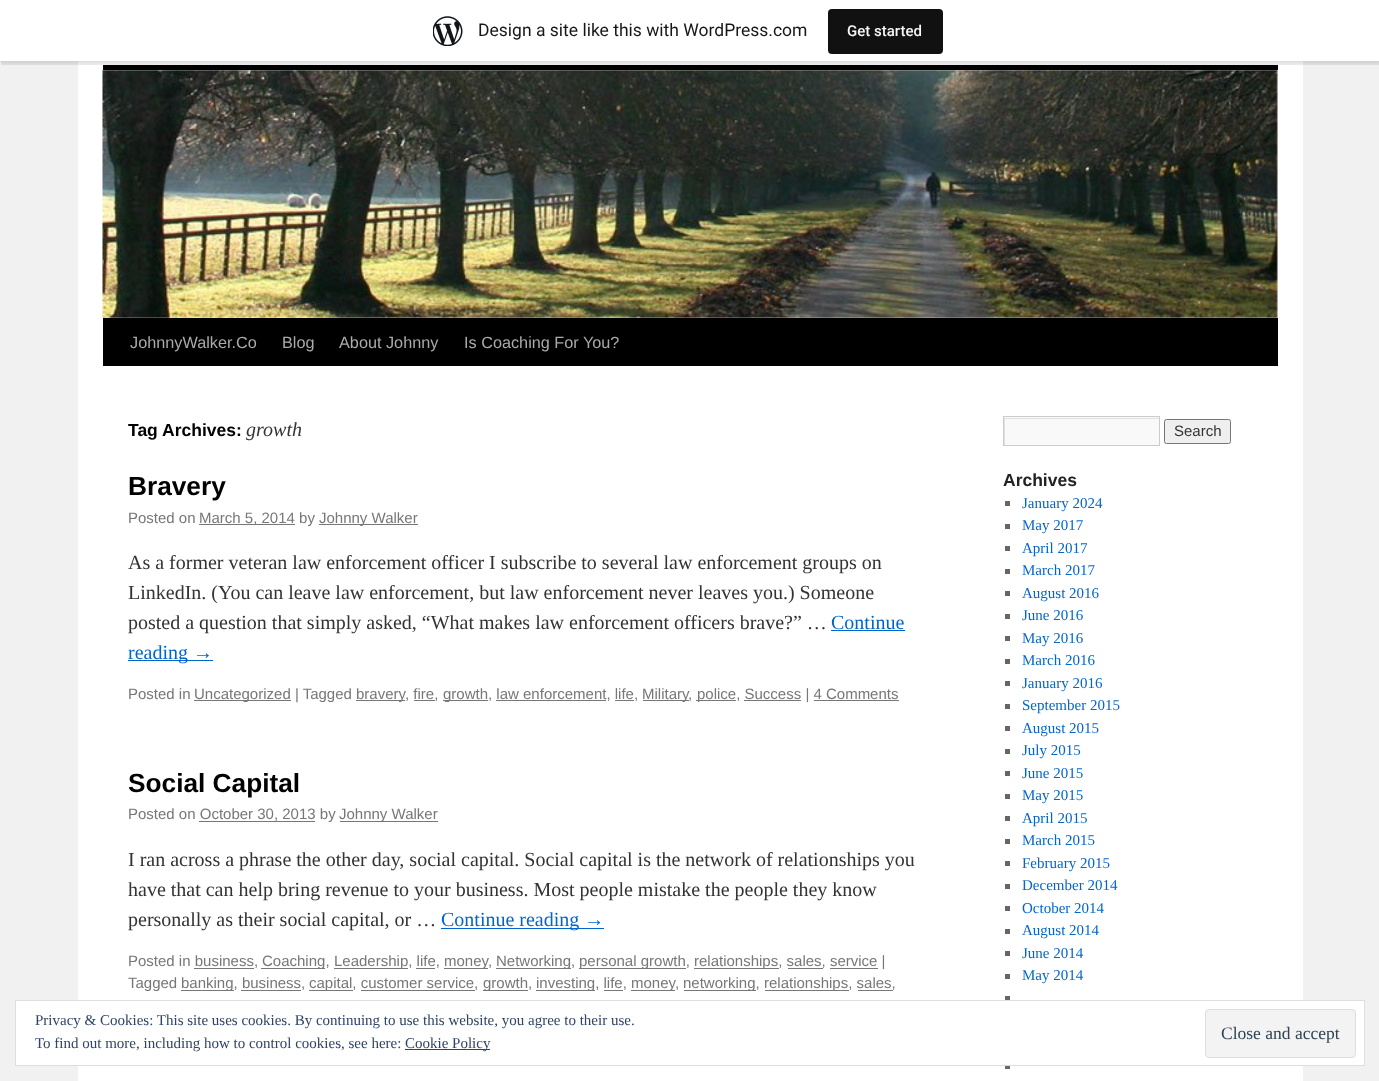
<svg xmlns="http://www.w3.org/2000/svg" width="1379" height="1081">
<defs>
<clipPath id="clip1"><rect x="1004" y="418" width="155" height="27"/></clipPath>
</defs>
<rect width="100%" height="100%" fill="#f1f1f1"/>
<rect x="78" y="61" width="1225" height="1020" fill="#fff"/>
<rect x="103" y="65" width="1175" height="5" fill="#000"/>
<rect y="1" width="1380" height="62" fill="#0000000d" filter="blur(1px)"/>
<path d="M1 61v4h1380v-61h-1v57z" fill="#00000014"/>
<rect width="1379" height="61" fill="#fff"/>
<image x="433" y="16" width="30" height="30" href="media/1.png"/>
<text x="478" y="36" style="font-family:Roboto;font-size:17.5px;fill:#171717">Design a site like this with WordPress.com</text>
<rect x="828" y="9" width="115" height="45" rx="4" fill="#111"/>
<text x="847" y="36" style="font-family:Roboto;font-size:15px;font-weight:500;fill:#f6f7f7">Get started</text>
<rect x="103" y="318" width="1175" height="48" fill="#000"/>
<image x="102" y="70" width="1176" height="248" href="media/2.png"/>
<text x="130" y="348" style="font-family:Liberation Sans;font-size:16.25px;fill:#aaa">JohnnyWalker.Co</text>
<text x="282" y="348" style="font-family:Liberation Sans;font-size:16.25px;fill:#aaa">Blog</text>
<text x="339" y="348" style="font-family:Liberation Sans;font-size:16.25px;fill:#aaa">About Johnny</text>
<text x="464" y="348" style="font-family:Liberation Sans;font-size:16.25px;fill:#aaa">Is Coaching For You?</text>
<text x="128" y="436" style="font-family:Liberation Sans;font-size:17.5px;font-weight:bold;fill:#000">Tag Archives:</text>
<text x="246" y="436" style="font-family:Liberation Serif;font-size:20px;font-style:italic;fill:#333">growth</text>
<text x="128" y="495" style="font-family:Liberation Sans;font-size:26.25px;font-weight:bold;fill:#000">Bravery</text>
<text x="128" y="523" style="font-family:Liberation Sans;font-size:15px;fill:#777">Posted on</text>
<rect x="199" y="524" width="96" height="1" fill="#777"/>
<text x="199" y="523" style="font-family:Liberation Sans;font-size:15px;fill:#777">March 5, 2014 by</text>
<rect x="319" y="524" width="99" height="1" fill="#777"/>
<text x="319" y="523" style="font-family:Liberation Sans;font-size:15px;fill:#777">Johnny Walker</text>
<text x="128" y="569" style="font-family:Liberation Serif;font-size:20px;fill:#333">As a former veteran law enforcement officer I subscribe to several law enforcement groups on</text>
<text x="128" y="599" style="font-family:Liberation Serif;font-size:20px;fill:#333">LinkedIn. (You can leave law enforcement, but law enforcement never leaves you.) Someone</text>
<text x="128" y="629" style="font-family:Liberation Serif;font-size:20px;fill:#333">posted a question that simply asked, “What makes law enforcement officers brave?” …</text>
<text x="831" y="629" style="font-family:Liberation Serif;font-size:20px;fill:#06c">Continue</text>
<rect x="831" y="630" width="74" height="1" fill="#06c"/>
<rect x="128" y="660" width="85" height="1" fill="#06c"/>
<text x="128" y="659" style="font-family:Liberation Serif;font-size:20px;fill:#06c">reading →</text>
<text x="128" y="699" style="font-family:Liberation Sans;font-size:15px;fill:#777">Posted in</text>
<rect x="194" y="700" width="97" height="1" fill="#777"/>
<text x="194" y="699" style="font-family:Liberation Sans;font-size:15px;fill:#777">Uncategorized | Tagged</text>
<rect x="356" y="700" width="49" height="1" fill="#777"/>
<text x="356" y="699" style="font-family:Liberation Sans;font-size:15px;fill:#777">bravery</text>
<text x="405" y="699" style="font-family:Liberation Sans;font-size:15px;fill:#777">, fire,</text>
<rect x="414" y="700" width="21" height="1" fill="#777"/>
<rect x="443" y="700" width="45" height="1" fill="#777"/>
<text x="443" y="699" style="font-family:Liberation Sans;font-size:15px;fill:#777">growth, law enforcement, life,</text>
<rect x="496" y="700" width="110" height="1" fill="#777"/>
<rect x="615" y="700" width="19" height="1" fill="#777"/>
<rect x="643" y="700" width="46" height="1" fill="#777"/>
<text x="642" y="699" style="font-family:Liberation Sans;font-size:15px;fill:#777">Military</text>
<text x="688" y="699" style="font-family:Liberation Sans;font-size:15px;fill:#777">,</text>
<rect x="696" y="700" width="40" height="1" fill="#777"/>
<text x="697" y="699" style="font-family:Liberation Sans;font-size:15px;fill:#777">police, Success | 4 Comments</text>
<rect x="744" y="700" width="57" height="1" fill="#777"/>
<rect x="814" y="700" width="85" height="1" fill="#777"/>
<text x="128" y="792" style="font-family:Liberation Sans;font-size:26.25px;font-weight:bold;fill:#000">Social Capital</text>
<text x="128" y="819" style="font-family:Liberation Sans;font-size:15px;fill:#777">Posted on October 30, 2013 by</text>
<rect x="340" y="821" width="98" height="1" fill="#777"/>
<text x="339" y="819" style="font-family:Liberation Sans;font-size:15px;fill:#777">Johnny Walker</text>
<rect x="199" y="821" width="116" height="1" fill="#777"/>
<text x="128" y="866" style="font-family:Liberation Serif;font-size:20px;fill:#333">I ran across a phrase the other day, social capital. Social capital is the network of relationships you</text>
<text x="128" y="896" style="font-family:Liberation Serif;font-size:20px;fill:#333">have that can help bring revenue to your business. Most people mistake the people they know</text>
<text x="128" y="926" style="font-family:Liberation Serif;font-size:20px;fill:#333">personally as their social capital, or …</text>
<rect x="441" y="928" width="163" height="1" fill="#06c"/>
<text x="441" y="926" style="font-family:Liberation Serif;font-size:20px;fill:#06c">Continue reading →</text>
<text x="128" y="966" style="font-family:Liberation Sans;font-size:15px;fill:#777">Posted in business,</text>
<rect x="194" y="968" width="60" height="1" fill="#777"/>
<rect x="261" y="968" width="64" height="1" fill="#777"/>
<text x="262" y="966" style="font-family:Liberation Sans;font-size:15px;fill:#777">Coaching,</text>
<rect x="334" y="968" width="74" height="1" fill="#777"/>
<text x="334" y="966" style="font-family:Liberation Sans;font-size:15px;fill:#777">Leadership, life,</text>
<rect x="416" y="968" width="19" height="1" fill="#777"/>
<rect x="444" y="968" width="44" height="1" fill="#777"/>
<text x="444" y="966" style="font-family:Liberation Sans;font-size:15px;fill:#777">money</text>
<text x="488" y="966" style="font-family:Liberation Sans;font-size:15px;fill:#777">,</text>
<rect x="496" y="968" width="75" height="1" fill="#777"/>
<text x="496" y="966" style="font-family:Liberation Sans;font-size:15px;fill:#777">Networking,</text>
<rect x="579" y="968" width="107" height="1" fill="#777"/>
<text x="579" y="966" style="font-family:Liberation Sans;font-size:15px;fill:#777">personal growth,</text>
<rect x="694" y="968" width="85" height="1" fill="#777"/>
<text x="694" y="966" style="font-family:Liberation Sans;font-size:15px;fill:#777">relationships, sales, service |</text>
<rect x="788" y="968" width="35" height="1" fill="#777"/>
<rect x="830" y="968" width="48" height="1" fill="#777"/>
<text x="128" y="988" style="font-family:Liberation Sans;font-size:15px;fill:#777">Tagged</text>
<rect x="181" y="990" width="53" height="1" fill="#777"/>
<text x="181" y="988" style="font-family:Liberation Sans;font-size:15px;fill:#777">banking, business,</text>
<rect x="241" y="990" width="60" height="1" fill="#777"/>
<rect x="309" y="990" width="44" height="1" fill="#777"/>
<text x="309" y="988" style="font-family:Liberation Sans;font-size:15px;fill:#777">capital, customer service,</text>
<rect x="361" y="990" width="114" height="1" fill="#777"/>
<rect x="483" y="990" width="45" height="1" fill="#777"/>
<text x="483" y="988" style="font-family:Liberation Sans;font-size:15px;fill:#777">growth,</text>
<rect x="536" y="990" width="59" height="1" fill="#777"/>
<text x="536" y="988" style="font-family:Liberation Sans;font-size:15px;fill:#777">investing, life,</text>
<rect x="604" y="990" width="19" height="1" fill="#777"/>
<rect x="631" y="990" width="44" height="1" fill="#777"/>
<text x="631" y="988" style="font-family:Liberation Sans;font-size:15px;fill:#777">money</text>
<rect x="684" y="990" width="72" height="1" fill="#777"/>
<text x="683" y="988" style="font-family:Liberation Sans;font-size:15px;fill:#777">networking,</text>
<rect x="765" y="990" width="84" height="1" fill="#777"/>
<text x="764" y="988" style="font-family:Liberation Sans;font-size:15px;fill:#777">relationships, sales,</text>
<rect x="858" y="990" width="35" height="1" fill="#777"/>
<text x="675" y="988" style="font-family:Liberation Sans;font-size:15px;fill:#777">,</text>
<rect x="1004" y="417" width="155" height="28" fill="#f9f9f9"/>
<g clip-path="url(#clip1)">
<path d="M880 294h402v275h-402zm125 125h155v27h-155z" fill="#e0e0e0" fill-rule="evenodd"/>
</g>
<rect x="1003.5" y="416.5" width="156" height="29" fill="none" stroke="#ccc"/>
<rect x="1164.5" y="419.5" width="66" height="24" rx="2" fill="#efefef" stroke="#767676"/>
<text x="1174" y="436" style="font-family:Liberation Sans;font-size:15px;fill:#333">Search</text>
<text x="1003" y="486" style="font-family:Liberation Sans;font-size:17.5px;font-weight:bold;fill:#222">Archives</text>
<rect x="1005" y="501" width="5" height="5" fill="#666"/>
<text x="1022" y="508" style="font-family:Liberation Serif;font-size:15px;fill:#06c">January 2024</text>
<rect x="1005" y="524" width="5" height="5" fill="#666"/>
<text x="1022" y="530" style="font-family:Liberation Serif;font-size:15px;fill:#06c">May 2017</text>
<rect x="1005" y="546" width="5" height="5" fill="#666"/>
<text x="1022" y="553" style="font-family:Liberation Serif;font-size:15px;fill:#06c">April 2017</text>
<rect x="1005" y="569" width="5" height="5" fill="#666"/>
<text x="1022" y="575" style="font-family:Liberation Serif;font-size:15px;fill:#06c">March 2017</text>
<rect x="1005" y="591" width="5" height="5" fill="#666"/>
<text x="1022" y="598" style="font-family:Liberation Serif;font-size:15px;fill:#06c">August 2016</text>
<rect x="1005" y="614" width="5" height="5" fill="#666"/>
<text x="1022" y="620" style="font-family:Liberation Serif;font-size:15px;fill:#06c">June 2016</text>
<rect x="1005" y="636" width="5" height="5" fill="#666"/>
<text x="1022" y="643" style="font-family:Liberation Serif;font-size:15px;fill:#06c">May 2016</text>
<rect x="1005" y="659" width="5" height="5" fill="#666"/>
<text x="1022" y="665" style="font-family:Liberation Serif;font-size:15px;fill:#06c">March 2016</text>
<rect x="1005" y="681" width="5" height="5" fill="#666"/>
<text x="1022" y="688" style="font-family:Liberation Serif;font-size:15px;fill:#06c">January 2016</text>
<rect x="1005" y="704" width="5" height="5" fill="#666"/>
<text x="1022" y="710" style="font-family:Liberation Serif;font-size:15px;fill:#06c">September 2015</text>
<rect x="1005" y="726" width="5" height="5" fill="#666"/>
<text x="1022" y="733" style="font-family:Liberation Serif;font-size:15px;fill:#06c">August 2015</text>
<rect x="1005" y="749" width="5" height="5" fill="#666"/>
<text x="1022" y="755" style="font-family:Liberation Serif;font-size:15px;fill:#06c">July 2015</text>
<rect x="1005" y="771" width="5" height="5" fill="#666"/>
<text x="1022" y="778" style="font-family:Liberation Serif;font-size:15px;fill:#06c">June 2015</text>
<rect x="1005" y="794" width="5" height="5" fill="#666"/>
<text x="1022" y="800" style="font-family:Liberation Serif;font-size:15px;fill:#06c">May 2015</text>
<rect x="1005" y="816" width="5" height="5" fill="#666"/>
<text x="1022" y="823" style="font-family:Liberation Serif;font-size:15px;fill:#06c">April 2015</text>
<rect x="1005" y="839" width="5" height="5" fill="#666"/>
<text x="1022" y="845" style="font-family:Liberation Serif;font-size:15px;fill:#06c">March 2015</text>
<rect x="1005" y="861" width="5" height="5" fill="#666"/>
<text x="1022" y="868" style="font-family:Liberation Serif;font-size:15px;fill:#06c">February 2015</text>
<rect x="1005" y="884" width="5" height="5" fill="#666"/>
<text x="1022" y="890" style="font-family:Liberation Serif;font-size:15px;fill:#06c">December 2014</text>
<rect x="1005" y="906" width="5" height="5" fill="#666"/>
<text x="1022" y="913" style="font-family:Liberation Serif;font-size:15px;fill:#06c">October 2014</text>
<rect x="1005" y="929" width="5" height="5" fill="#666"/>
<text x="1022" y="935" style="font-family:Liberation Serif;font-size:15px;fill:#06c">August 2014</text>
<rect x="1005" y="951" width="5" height="5" fill="#666"/>
<text x="1022" y="958" style="font-family:Liberation Serif;font-size:15px;fill:#06c">June 2014</text>
<rect x="1005" y="974" width="5" height="5" fill="#666"/>
<text x="1022" y="980" style="font-family:Liberation Serif;font-size:15px;fill:#06c">May 2014</text>
<rect x="1005" y="996" width="5" height="4" fill="#666"/>
<rect x="1005" y="1066" width="5" height="3" fill="#666"/>
<rect x="15.5" y="1000.5" width="1349" height="65" fill="#fff" stroke="#dedede"/>
<text x="35" y="1025" style="font-family:Liberation Serif;font-size:15px;fill:#2e4467">Privacy &amp; Cookies: This site uses cookies. By continuing to use this website, you agree to their use.</text>
<rect x="1205.5" y="1009.5" width="150" height="48" rx="3.5" fill="#f3f3f3" stroke="#dedede"/>
<text x="1221" y="1039" style="font-family:Liberation Serif;font-size:17.5px;fill:#2e4453">Close and accept</text>
<text x="35" y="1048" style="font-family:Liberation Serif;font-size:15px;fill:#2e4467">To find out more, including how to control cookies, see here:</text>
<rect x="405" y="1049" width="85" height="1" fill="#2e4467"/>
<text x="405" y="1048" style="font-family:Liberation Serif;font-size:15px;fill:#2e4467">Cookie Policy</text>
</svg>
